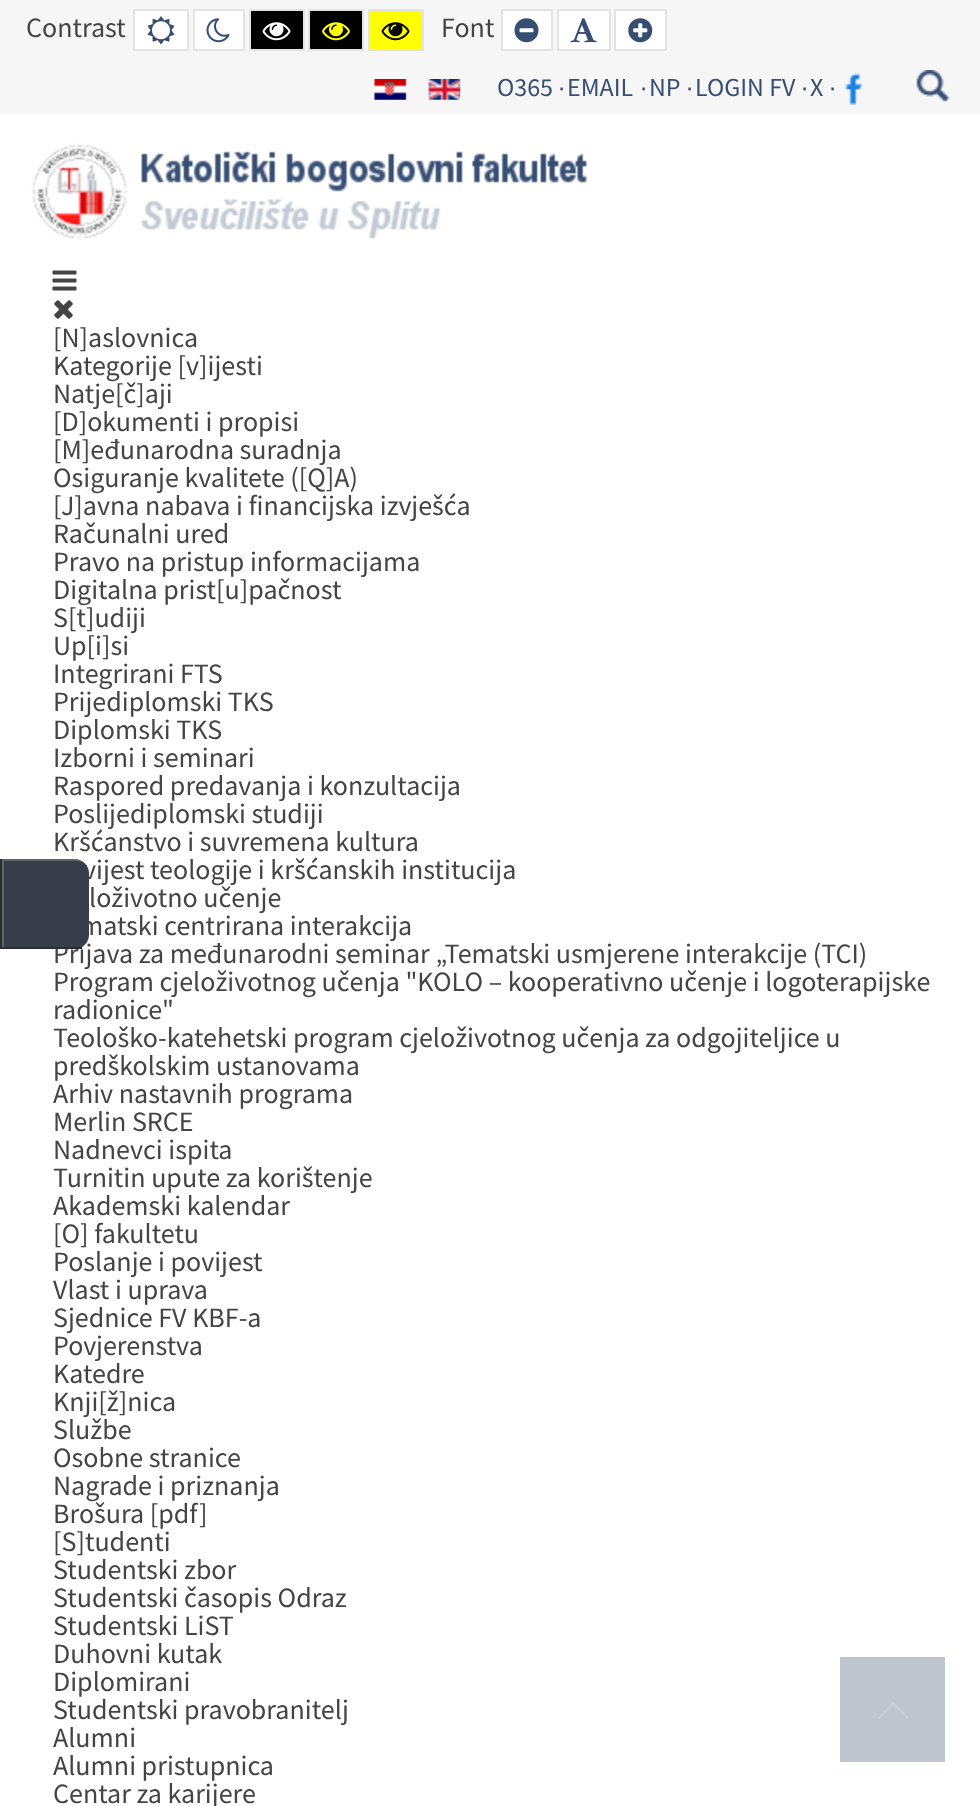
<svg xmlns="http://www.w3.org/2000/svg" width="980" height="1806">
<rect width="100%" height="100%" fill="#f6f6f6"/>
<text x="26" y="37" style="font-family:Source Sans Pro;font-size:28px;fill:#444">Contrast</text>
<rect x="134" y="10" width="54" height="40" fill="#fff" stroke="#e3e3e3" stroke-width="2"/>
<image x="147" y="16" width="28" height="29" href="media/1.png"/>
<rect x="194" y="10" width="50" height="40" fill="#fff" stroke="#e3e3e3" stroke-width="2"/>
<image x="206" y="18" width="24" height="25" href="media/2.png"/>
<rect x="250" y="10" width="54" height="40" fill="#000" stroke="#e3e3e3" stroke-width="2"/>
<image x="262" y="22" width="29" height="19" href="media/3.png"/>
<rect x="309" y="10" width="54" height="40" fill="#000" stroke="#e3e3e3" stroke-width="2"/>
<image x="322" y="22" width="28" height="19" href="media/4.png"/>
<rect x="369" y="10" width="54" height="40" fill="#ff0" stroke="#e3e3e3" stroke-width="2"/>
<image x="381" y="22" width="29" height="19" href="media/5.png"/>
<text x="441" y="37" style="font-family:Source Sans Pro;font-size:28px;fill:#444">Font</text>
<rect x="502" y="10" width="50" height="40" fill="#fff" stroke="#e3e3e3" stroke-width="2"/>
<image x="514" y="18" width="25" height="25" href="media/6.png"/>
<rect x="558" y="10" width="52" height="40" fill="#fff" stroke="#e3e3e3" stroke-width="2"/>
<image x="570" y="18" width="27" height="25" href="media/7.png"/>
<rect x="615" y="10" width="51" height="40" fill="#fff" stroke="#e3e3e3" stroke-width="2"/>
<image x="628" y="18" width="25" height="25" href="media/8.png"/>
<image x="374" y="79" width="33" height="21" href="media/9.png"/>
<image x="428" y="79" width="33" height="21" href="media/10.png"/>
<text x="497" y="96" style="font-family:Source Sans Pro;font-size:26px;fill:#364e72">O365</text>
<text x="558" y="96" style="font-family:Liberation Sans;font-size:26px;fill:#364e72">∙</text>
<text x="567" y="96" style="font-family:Source Sans Pro;font-size:26px;fill:#364e72">EMAIL</text>
<text x="640" y="96" style="font-family:Liberation Sans;font-size:26px;fill:#364e72">∙</text>
<text x="649" y="96" style="font-family:Source Sans Pro;font-size:26px;fill:#364e72">NP</text>
<text x="686" y="96" style="font-family:Liberation Sans;font-size:26px;fill:#364e72">∙</text>
<text x="695" y="96" style="font-family:Source Sans Pro;font-size:26px;fill:#364e72">LOGIN FV</text>
<text x="801" y="96" style="font-family:Liberation Sans;font-size:26px;fill:#364e72">∙</text>
<text x="810" y="96" style="font-family:Source Sans Pro;font-size:26px;fill:#364e72">X</text>
<text x="829" y="96" style="font-family:Liberation Sans;font-size:26px;fill:#364e72">∙</text>
<image x="844" y="73" width="19" height="32" href="media/11.png"/>
<image x="916" y="70" width="34" height="32" href="media/12.png"/>
<rect y="114" width="980" height="1692" fill="#fff"/>
<image x="31" y="143" width="557" height="96" href="media/13.png"/>
<image x="52" y="270" width="25" height="21" href="media/14.png"/>
<image x="54" y="300" width="19" height="19" href="media/15.png"/>
<text x="53" y="347" style="font-family:Source Sans Pro;font-size:28px;fill:#444">[N]aslovnica</text>
<text x="53" y="375" style="font-family:Source Sans Pro;font-size:28px;fill:#444">Kategorije [v]ijesti</text>
<text x="53" y="403" style="font-family:Source Sans Pro;font-size:28px;fill:#444">Natje[č]aji</text>
<text x="53" y="431" style="font-family:Source Sans Pro;font-size:28px;fill:#444">[D]okumenti i propisi</text>
<text x="53" y="459" style="font-family:Source Sans Pro;font-size:28px;fill:#444">[M]eđunarodna suradnja</text>
<text x="53" y="487" style="font-family:Source Sans Pro;font-size:28px;fill:#444">Osiguranje kvalitete ([Q]A)</text>
<text x="53" y="515" style="font-family:Source Sans Pro;font-size:28px;fill:#444">[J]avna nabava i financijska izvješća</text>
<text x="53" y="543" style="font-family:Source Sans Pro;font-size:28px;fill:#444">Računalni ured</text>
<text x="53" y="571" style="font-family:Source Sans Pro;font-size:28px;fill:#444">Pravo na pristup informacijama</text>
<text x="53" y="599" style="font-family:Source Sans Pro;font-size:28px;fill:#444">Digitalna prist[u]pačnost</text>
<text x="53" y="627" style="font-family:Source Sans Pro;font-size:28px;fill:#444">S[t]udiji</text>
<text x="53" y="655" style="font-family:Source Sans Pro;font-size:28px;fill:#444">Up[i]si</text>
<text x="53" y="683" style="font-family:Source Sans Pro;font-size:28px;fill:#444">Integrirani FTS</text>
<text x="53" y="711" style="font-family:Source Sans Pro;font-size:28px;fill:#444">Prijediplomski TKS</text>
<text x="53" y="739" style="font-family:Source Sans Pro;font-size:28px;fill:#444">Diplomski TKS</text>
<text x="53" y="767" style="font-family:Source Sans Pro;font-size:28px;fill:#444">Izborni i seminari</text>
<text x="53" y="795" style="font-family:Source Sans Pro;font-size:28px;fill:#444">Raspored predavanja i konzultacija</text>
<text x="53" y="823" style="font-family:Source Sans Pro;font-size:28px;fill:#444">Poslijediplomski studiji</text>
<text x="53" y="851" style="font-family:Source Sans Pro;font-size:28px;fill:#444">Kršćanstvo i suvremena kultura</text>
<text x="83" y="879" style="font-family:Source Sans Pro;font-size:28px;fill:#444">vijest teologije i kršćanskih institucija</text>
<text x="89" y="907" style="font-family:Source Sans Pro;font-size:28px;fill:#444">loživotno učenje</text>
<text x="80" y="935" style="font-family:Source Sans Pro;font-size:28px;fill:#444">matski centrirana interakcija</text>
<text x="53" y="963" style="font-family:Source Sans Pro;font-size:28px;fill:#444">Prijava za međunarodni seminar „Tematski usmjerene interakcije (TCI)</text>
<text x="53" y="991" style="font-family:Source Sans Pro;font-size:28px;fill:#444">Program cjeloživotnog učenja "KOLO – kooperativno učenje i logoterapijske</text>
<text x="53" y="1019" style="font-family:Source Sans Pro;font-size:28px;fill:#444">radionice"</text>
<text x="53" y="1047" style="font-family:Source Sans Pro;font-size:28px;fill:#444">Teološko-katehetski program cjeloživotnog učenja za odgojiteljice u</text>
<text x="53" y="1075" style="font-family:Source Sans Pro;font-size:28px;fill:#444">predškolskim ustanovama</text>
<text x="53" y="1103" style="font-family:Source Sans Pro;font-size:28px;fill:#444">Arhiv nastavnih programa</text>
<text x="53" y="1131" style="font-family:Source Sans Pro;font-size:28px;fill:#444">Merlin SRCE</text>
<text x="53" y="1159" style="font-family:Source Sans Pro;font-size:28px;fill:#444">Nadnevci ispita</text>
<text x="53" y="1187" style="font-family:Source Sans Pro;font-size:28px;fill:#444">Turnitin upute za korištenje</text>
<text x="53" y="1215" style="font-family:Source Sans Pro;font-size:28px;fill:#444">Akademski kalendar</text>
<text x="53" y="1243" style="font-family:Source Sans Pro;font-size:28px;fill:#444">[O] fakultetu</text>
<text x="53" y="1271" style="font-family:Source Sans Pro;font-size:28px;fill:#444">Poslanje i povijest</text>
<text x="53" y="1299" style="font-family:Source Sans Pro;font-size:28px;fill:#444">Vlast i uprava</text>
<text x="53" y="1327" style="font-family:Source Sans Pro;font-size:28px;fill:#444">Sjednice FV KBF-a</text>
<text x="53" y="1355" style="font-family:Source Sans Pro;font-size:28px;fill:#444">Povjerenstva</text>
<text x="53" y="1383" style="font-family:Source Sans Pro;font-size:28px;fill:#444">Katedre</text>
<text x="53" y="1411" style="font-family:Source Sans Pro;font-size:28px;fill:#444">Knji[ž]nica</text>
<text x="53" y="1439" style="font-family:Source Sans Pro;font-size:28px;fill:#444">Službe</text>
<text x="53" y="1467" style="font-family:Source Sans Pro;font-size:28px;fill:#444">Osobne stranice</text>
<text x="53" y="1495" style="font-family:Source Sans Pro;font-size:28px;fill:#444">Nagrade i priznanja</text>
<text x="53" y="1523" style="font-family:Source Sans Pro;font-size:28px;fill:#444">Brošura [pdf]</text>
<text x="53" y="1551" style="font-family:Source Sans Pro;font-size:28px;fill:#444">[S]tudenti</text>
<text x="53" y="1579" style="font-family:Source Sans Pro;font-size:28px;fill:#444">Studentski zbor</text>
<text x="53" y="1607" style="font-family:Source Sans Pro;font-size:28px;fill:#444">Studentski časopis Odraz</text>
<text x="53" y="1635" style="font-family:Source Sans Pro;font-size:28px;fill:#444">Studentski LiST</text>
<text x="53" y="1663" style="font-family:Source Sans Pro;font-size:28px;fill:#444">Duhovni kutak</text>
<text x="53" y="1691" style="font-family:Source Sans Pro;font-size:28px;fill:#444">Diplomirani</text>
<text x="53" y="1719" style="font-family:Source Sans Pro;font-size:28px;fill:#444">Studentski pravobranitelj</text>
<text x="53" y="1747" style="font-family:Source Sans Pro;font-size:28px;fill:#444">Alumni</text>
<text x="53" y="1775" style="font-family:Source Sans Pro;font-size:28px;fill:#444">Alumni pristupnica</text>
<text x="53" y="1803" style="font-family:Source Sans Pro;font-size:28px;fill:#444">Centar za karijere</text>
<rect x="840" y="1657" width="105" height="105" fill="#bfc5ce"/>
<image x="878" y="1702" width="31" height="17" href="media/16.png"/>
<path d="M0 859h75c7.5 0 14 6.5 14 14v62c0 7.5-6.5 14-14 14h-75z" fill="#383e49"/>
<path d="M4 861h73c3 0 6 1 8 3c-2-3-6-5-10-5h-73v88h2z" fill="#ffffff33"/>
<rect y="947" width="82" height="2" fill="#2a2e37"/>
<rect y="859" width="2" height="90" fill="#2a2e37"/>
</svg>
